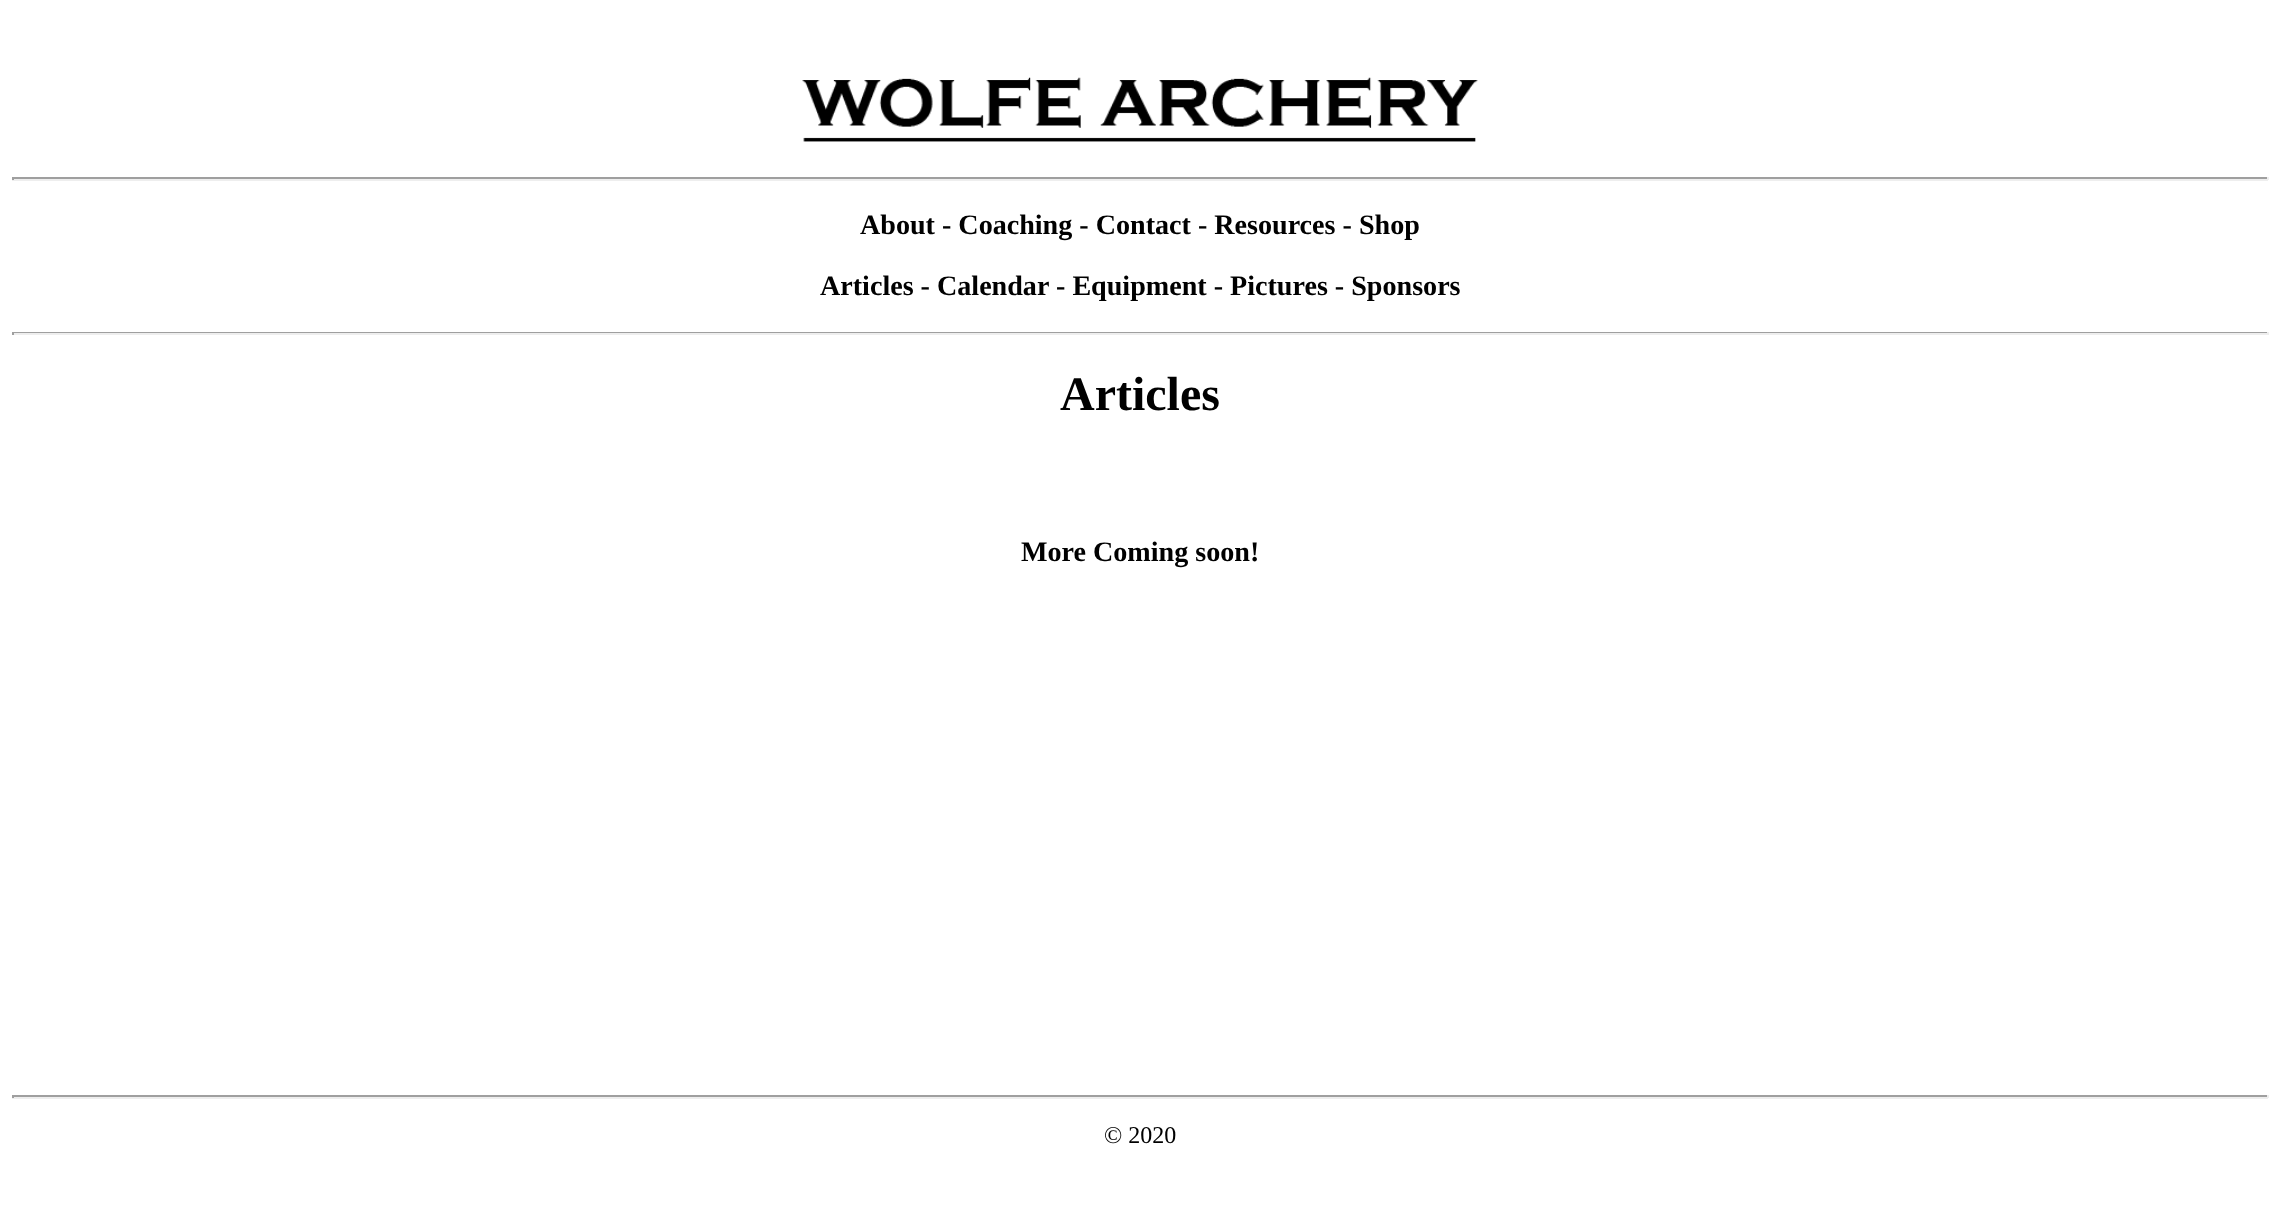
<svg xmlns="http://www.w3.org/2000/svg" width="2280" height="1224">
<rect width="100%" height="100%" fill="#fff"/>
<image x="802" y="77" width="676" height="65" href="media/1.png"/>
<rect x="12" y="177" width="2256" height="2" fill="#9f9f9f"/>
<rect x="2267" y="177" width="2" height="3" fill="#eee"/>
<rect x="12" y="179" width="2256" height="2" fill="#eee"/>
<rect x="12" y="177" width="2" height="3" fill="#9f9f9f"/>
<text x="860" y="234" style="font-family:Liberation Serif;font-size:28.1px;font-weight:bold;fill:#000">About - Coaching - Contact - Resources - Shop</text>
<text x="820" y="295" style="font-family:Liberation Serif;font-size:28.1px;font-weight:bold;fill:#000">Articles - Calendar</text>
<text x="1056" y="295" style="font-family:Liberation Serif;font-size:28.1px;font-weight:bold;fill:#000">- Equipment - Pictures - Sponsors</text>
<rect x="12" y="332" width="2256" height="1" fill="#9f9f9f"/>
<rect x="2267" y="332" width="2" height="3" fill="#eee"/>
<rect x="12" y="333" width="2256" height="2" fill="#eee"/>
<rect x="12" y="332" width="2" height="3" fill="#9f9f9f"/>
<text x="1060" y="410" style="font-family:Liberation Serif;font-size:48px;font-weight:bold;fill:#000">Articles</text>
<text x="1021" y="561" style="font-family:Liberation Serif;font-size:28.1px;font-weight:bold;fill:#000">More Coming soon!</text>
<rect x="12" y="1095" width="2256" height="2" fill="#9f9f9f"/>
<rect x="2267" y="1095" width="2" height="3" fill="#eee"/>
<rect x="12" y="1097" width="2256" height="2" fill="#eee"/>
<rect x="12" y="1095" width="2" height="3" fill="#9f9f9f"/>
<text x="1104" y="1143" style="font-family:Liberation Serif;font-size:24px;fill:#000">© 2020</text>
</svg>
